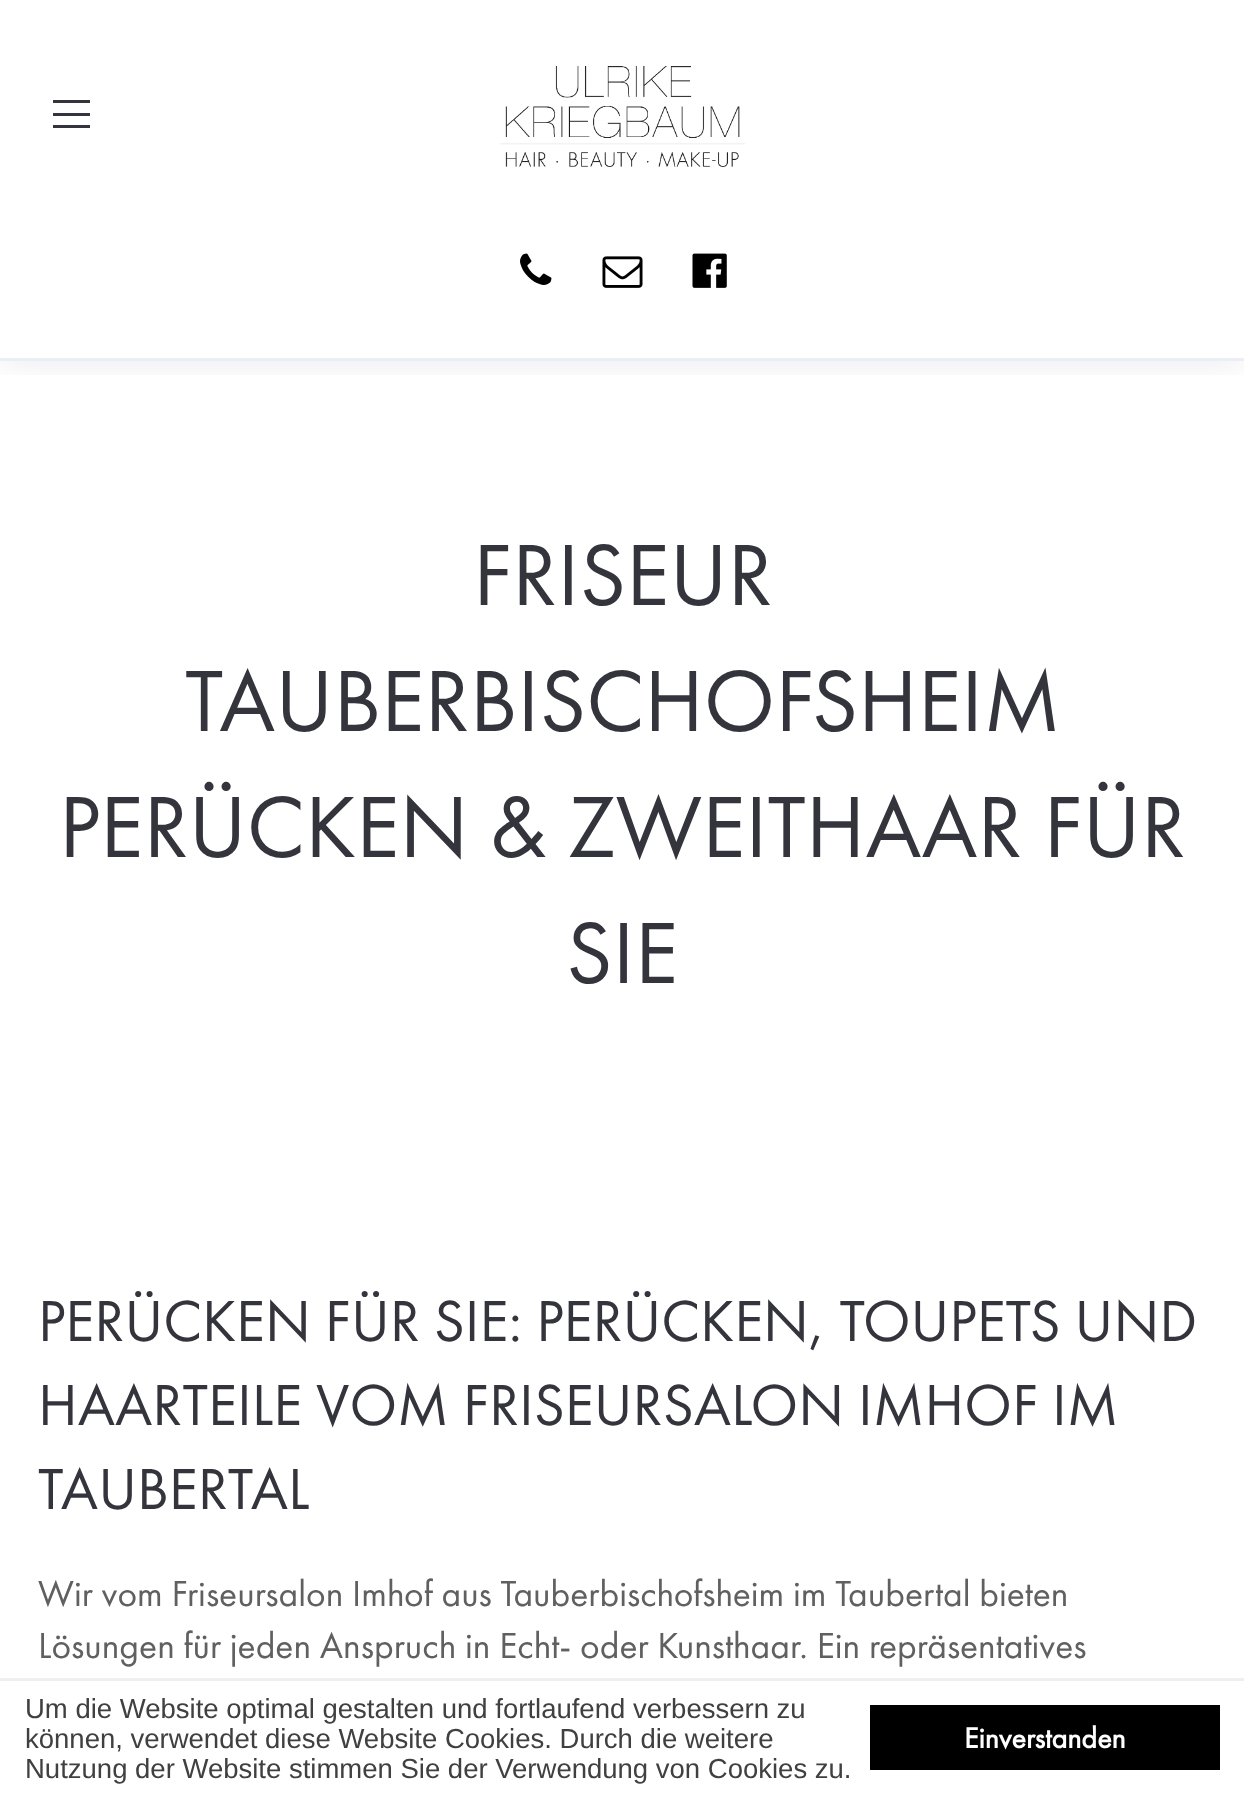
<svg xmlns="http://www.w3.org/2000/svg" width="1244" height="1793">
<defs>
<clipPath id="clip1"><rect x="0" y="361" width="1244" height="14"/></clipPath>
</defs>
<rect width="100%" height="100%" fill="#fff"/>
<g clip-path="url(#clip1)">
<rect width="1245" height="360" fill="#00003217" filter="blur(19px)"/>
</g>
<rect y="358" width="1244" height="3" fill="#ebeef6"/>
<rect x="53" y="125" width="37" height="3" fill="#34343c"/>
<rect x="53" y="100" width="37" height="3" fill="#34343c"/>
<rect x="53" y="113" width="37" height="3" fill="#34343c"/>
<image x="500" y="66" width="245" height="101" href="media/1.png"/>
<image x="520" y="253" width="32" height="32" href="media/2.png"/>
<image x="602" y="256" width="41" height="32" href="media/3.png"/>
<image x="692" y="253" width="35" height="35" href="media/4.png"/>
<text x="473" y="605" style="font-family:Futura PT;font-size:90px;fill:#34343c">FRISEUR</text>
<text x="185" y="731" style="font-family:Futura PT;font-size:90px;fill:#34343c">TAUBERBISCHOFSHEIM</text>
<text x="59" y="857" style="font-family:Futura PT;font-size:90px;fill:#34343c">PERÜCKEN &amp; ZWEITHAAR FÜR</text>
<text x="566" y="983" style="font-family:Futura PT;font-size:90px;fill:#34343c">SIE</text>
<text x="38" y="1341" style="font-family:Futura PT;font-size:60px;fill:#34343c">PERÜCKEN FÜR SIE: PERÜCKEN, TOUPETS UND</text>
<text x="38" y="1425" style="font-family:Futura PT;font-size:60px;fill:#34343c">HAARTEILE VOM FRISEURSALON IMHOF IM</text>
<text x="38" y="1509" style="font-family:Futura PT;font-size:60px;fill:#34343c">TAUBERTAL</text>
<text x="38" y="1606" style="font-family:Futura PT;font-size:37.5px;fill:#606060">Wir vom Friseursalon Imhof aus Tauberbischofsheim im Taubertal bieten</text>
<text x="38" y="1658" style="font-family:Futura PT;font-size:37.5px;fill:#606060">Lösungen für jeden Anspruch in Echt- oder Kunsthaar. Ein repräsentatives</text>
<rect y="1678" width="1244" height="3" fill="#efefef"/>
<text x="25" y="1718" style="font-family:Liberation Sans;font-size:27.5px;fill:#404040">Um die Website optimal gestalten und fortlaufend verbessern zu</text>
<text x="25" y="1748" style="font-family:Liberation Sans;font-size:27.5px;fill:#404040">können, verwendet diese Website Cookies. Durch die weitere</text>
<text x="25" y="1778" style="font-family:Liberation Sans;font-size:27.5px;fill:#404040">Nutzung der Website stimmen Sie der Verwendung von Cookies zu.</text>
<rect x="870" y="1705" width="350" height="65" fill="#000"/>
<text x="964" y="1748" style="font-family:Futura PT;font-size:30px;font-weight:bold;fill:#fff">Einverstanden</text>
</svg>
